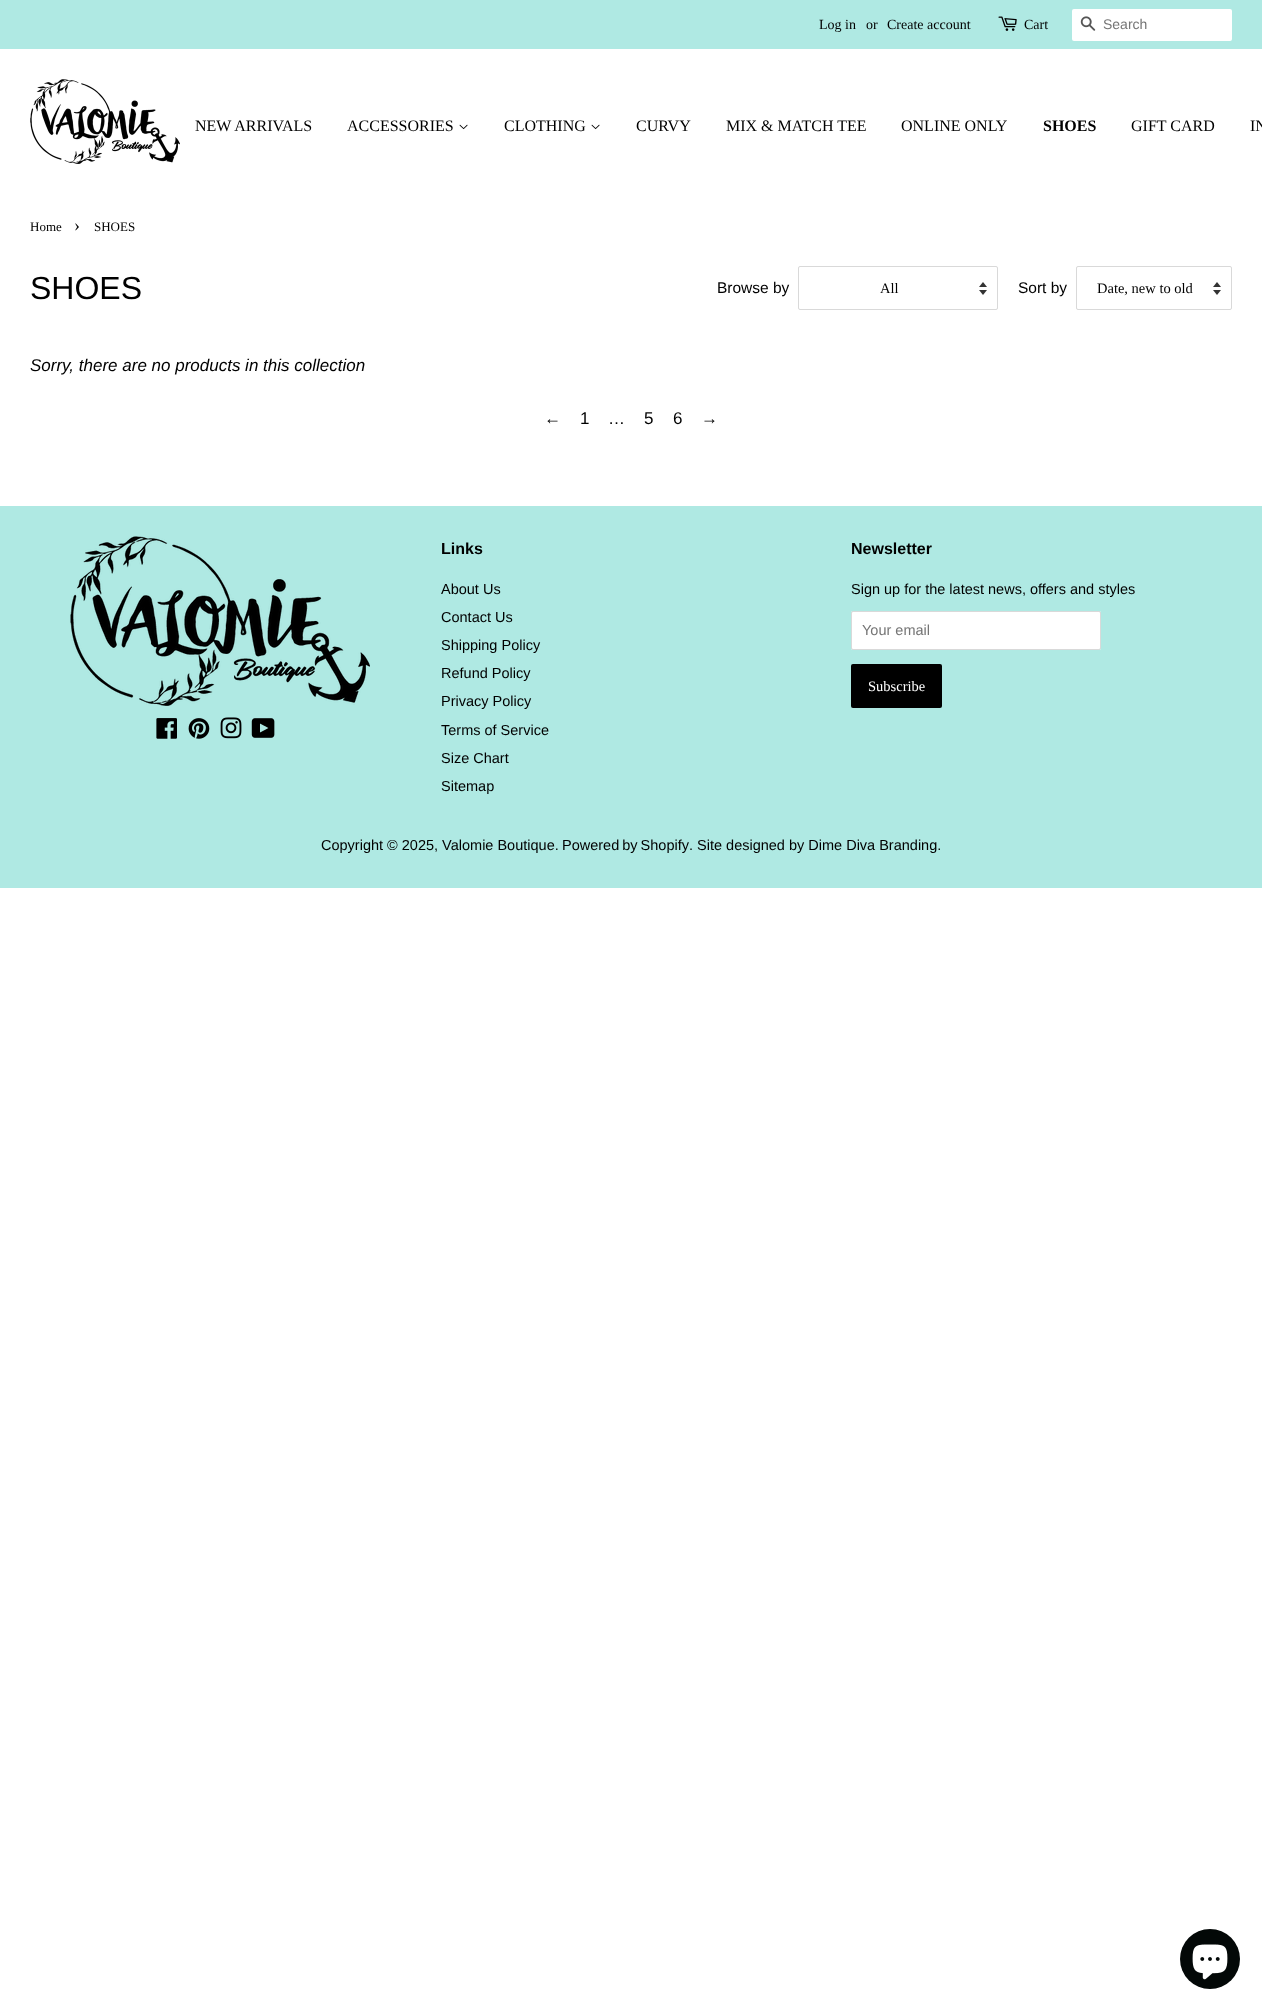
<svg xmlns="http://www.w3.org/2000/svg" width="1262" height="2010">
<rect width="100%" height="100%" fill="#fff"/>
<rect width="1262" height="49" fill="#afe9e3"/>
<text x="819" y="29" style="font-family:Liberation Serif;font-size:14px;fill:#000">Log in</text>
<text x="866" y="29" style="font-family:Liberation Serif;font-size:14px;fill:#000">or</text>
<text x="887" y="29" style="font-family:Liberation Serif;font-size:14px;fill:#000">Create account</text>
<image x="998" y="16" width="19" height="15" href="media/1.png"/>
<text x="1024" y="29" style="font-family:Liberation Serif;font-size:14px;fill:#000">Cart</text>
<rect x="1072" y="9" width="160" height="32" rx="2" fill="#fff"/>
<image x="1080" y="16" width="16" height="15" href="media/2.png"/>
<text x="1103" y="29" style="font-family:Arimo;font-size:14px;fill:#757575">Search</text>
<image x="30" y="79" width="150" height="85" href="media/3.png"/>
<text x="195" y="131" style="font-family:Liberation Serif;font-size:16px;fill:#000">NEW ARRIVALS</text>
<text x="347" y="131" style="font-family:Liberation Serif;font-size:16px;fill:#000">ACCESSORIES</text>
<image x="459" y="124" width="9" height="6" href="media/4.png"/>
<text x="504" y="131" style="font-family:Liberation Serif;font-size:16px;fill:#000">CLOTHING</text>
<image x="591" y="124" width="9" height="6" href="media/4.png"/>
<text x="636" y="131" style="font-family:Liberation Serif;font-size:16px;fill:#000">CURVY</text>
<text x="726" y="131" style="font-family:Liberation Serif;font-size:16px;fill:#000">MIX &amp; MATCH TEE</text>
<text x="901" y="131" style="font-family:Liberation Serif;font-size:16px;fill:#000">ONLINE ONLY</text>
<text x="1043" y="131" style="font-family:Liberation Serif;font-size:16px;font-weight:bold;fill:#000">SHOES</text>
<text x="1131" y="131" style="font-family:Liberation Serif;font-size:16px;fill:#000">GIFT CARD</text>
<text x="1250" y="131" style="font-family:Liberation Serif;font-size:16px;fill:#000">IN</text>
<text x="30" y="231" style="font-family:Liberation Serif;font-size:13px;fill:#000">Home</text>
<text x="74" y="231" style="font-family:Liberation Serif;font-size:18px;fill:#000">›</text>
<text x="94" y="231" style="font-family:Liberation Serif;font-size:13px;fill:#000">SHOES</text>
<text x="30" y="299" style="font-family:Arimo;font-size:32px;fill:#000">SHOES</text>
<text x="717" y="293" style="font-family:Arimo;font-size:15.5px;fill:#000">Browse by</text>
<image x="979" y="282" width="8" height="13" href="media/5.png"/>
<rect x="798.5" y="266.5" width="199" height="43" rx="1.5" fill="none" stroke="#d9d9d9"/>
<text x="880" y="293" style="font-family:Liberation Serif;font-size:14.5px;fill:#000">All</text>
<text x="1018" y="293" style="font-family:Arimo;font-size:15.5px;fill:#000">Sort by</text>
<image x="1213" y="282" width="8" height="13" href="media/5.png"/>
<rect x="1076.5" y="266.5" width="155" height="43" rx="1.5" fill="none" stroke="#d9d9d9"/>
<text x="1097" y="293" style="font-family:Liberation Serif;font-size:14.5px;fill:#000">Date, new to old</text>
<text x="30" y="371" style="font-family:Arimo;font-size:17px;font-style:italic;fill:#000">Sorry, there are no products in this collection</text>
<text x="544" y="424" style="font-family:Liberation Sans;font-size:17px;fill:#000">←</text>
<text x="580" y="424" style="font-family:Arimo;font-size:17px;fill:#000">1</text>
<text x="608" y="424" style="font-family:Arimo;font-size:17px;fill:#000">…</text>
<text x="644" y="424" style="font-family:Arimo;font-size:17px;fill:#000">5</text>
<text x="673" y="424" style="font-family:Arimo;font-size:17px;fill:#000">6</text>
<text x="701" y="424" style="font-family:Liberation Sans;font-size:17px;fill:#000">→</text>
<rect y="506" width="1262" height="382" fill="#afe9e3"/>
<image x="70" y="536" width="300" height="170" href="media/6.png"/>
<image x="156" y="718" width="21" height="21" href="media/7.png"/>
<image x="188" y="718" width="22" height="21" href="media/8.png"/>
<image x="220" y="717" width="22" height="22" href="media/9.png"/>
<image x="251" y="718" width="24" height="20" href="media/10.png"/>
<text x="441" y="554" style="font-family:Arimo;font-size:16px;font-weight:bold;fill:#000">Links</text>
<text x="441" y="594" style="font-family:Arimo;font-size:14.5px;fill:#000">About Us</text>
<text x="441" y="622" style="font-family:Arimo;font-size:14.5px;fill:#000">Contact Us</text>
<text x="441" y="650" style="font-family:Arimo;font-size:14.5px;fill:#000">Shipping Policy</text>
<text x="441" y="678" style="font-family:Arimo;font-size:14.5px;fill:#000">Refund Policy</text>
<text x="441" y="706" style="font-family:Arimo;font-size:14.5px;fill:#000">Privacy Policy</text>
<text x="441" y="735" style="font-family:Arimo;font-size:14.5px;fill:#000">Terms of Service</text>
<text x="441" y="763" style="font-family:Arimo;font-size:14.5px;fill:#000">Size Chart</text>
<text x="441" y="791" style="font-family:Arimo;font-size:14.5px;fill:#000">Sitemap</text>
<text x="851" y="554" style="font-family:Arimo;font-size:16px;font-weight:bold;fill:#000">Newsletter</text>
<text x="851" y="594" style="font-family:Arimo;font-size:14.5px;fill:#000">Sign up for the latest news, offers and styles</text>
<rect x="851" y="611" width="250" height="39" rx="2" fill="#fff"/>
<rect x="851.5" y="611.5" width="249" height="38" rx="1.5" fill="none" stroke="#00000026"/>
<text x="862" y="635" style="font-family:Arimo;font-size:14.5px;fill:#757575">Your email</text>
<rect x="851" y="664" width="91" height="44" rx="2" fill="#000"/>
<text x="868" y="691" style="font-family:Liberation Serif;font-size:14.5px;fill:#fff">Subscribe</text>
<text x="321" y="850" style="font-family:Arimo;font-size:14.5px;fill:#000">Copyright © 2025, Valomie Boutique.</text>
<text x="562" y="850" word-spacing="-1" style="font-family:Arimo;font-size:14.5px;fill:#000">Powered by Shopify</text>
<text x="689" y="850" style="font-family:Arimo;font-size:14.5px;fill:#000">. Site designed by Dime Diva Branding.</text>
<circle cx="1210" cy="1959" r="30" fill="#030807"/>
<image x="1192" y="1944" width="36" height="36" href="media/11.png"/>
</svg>
